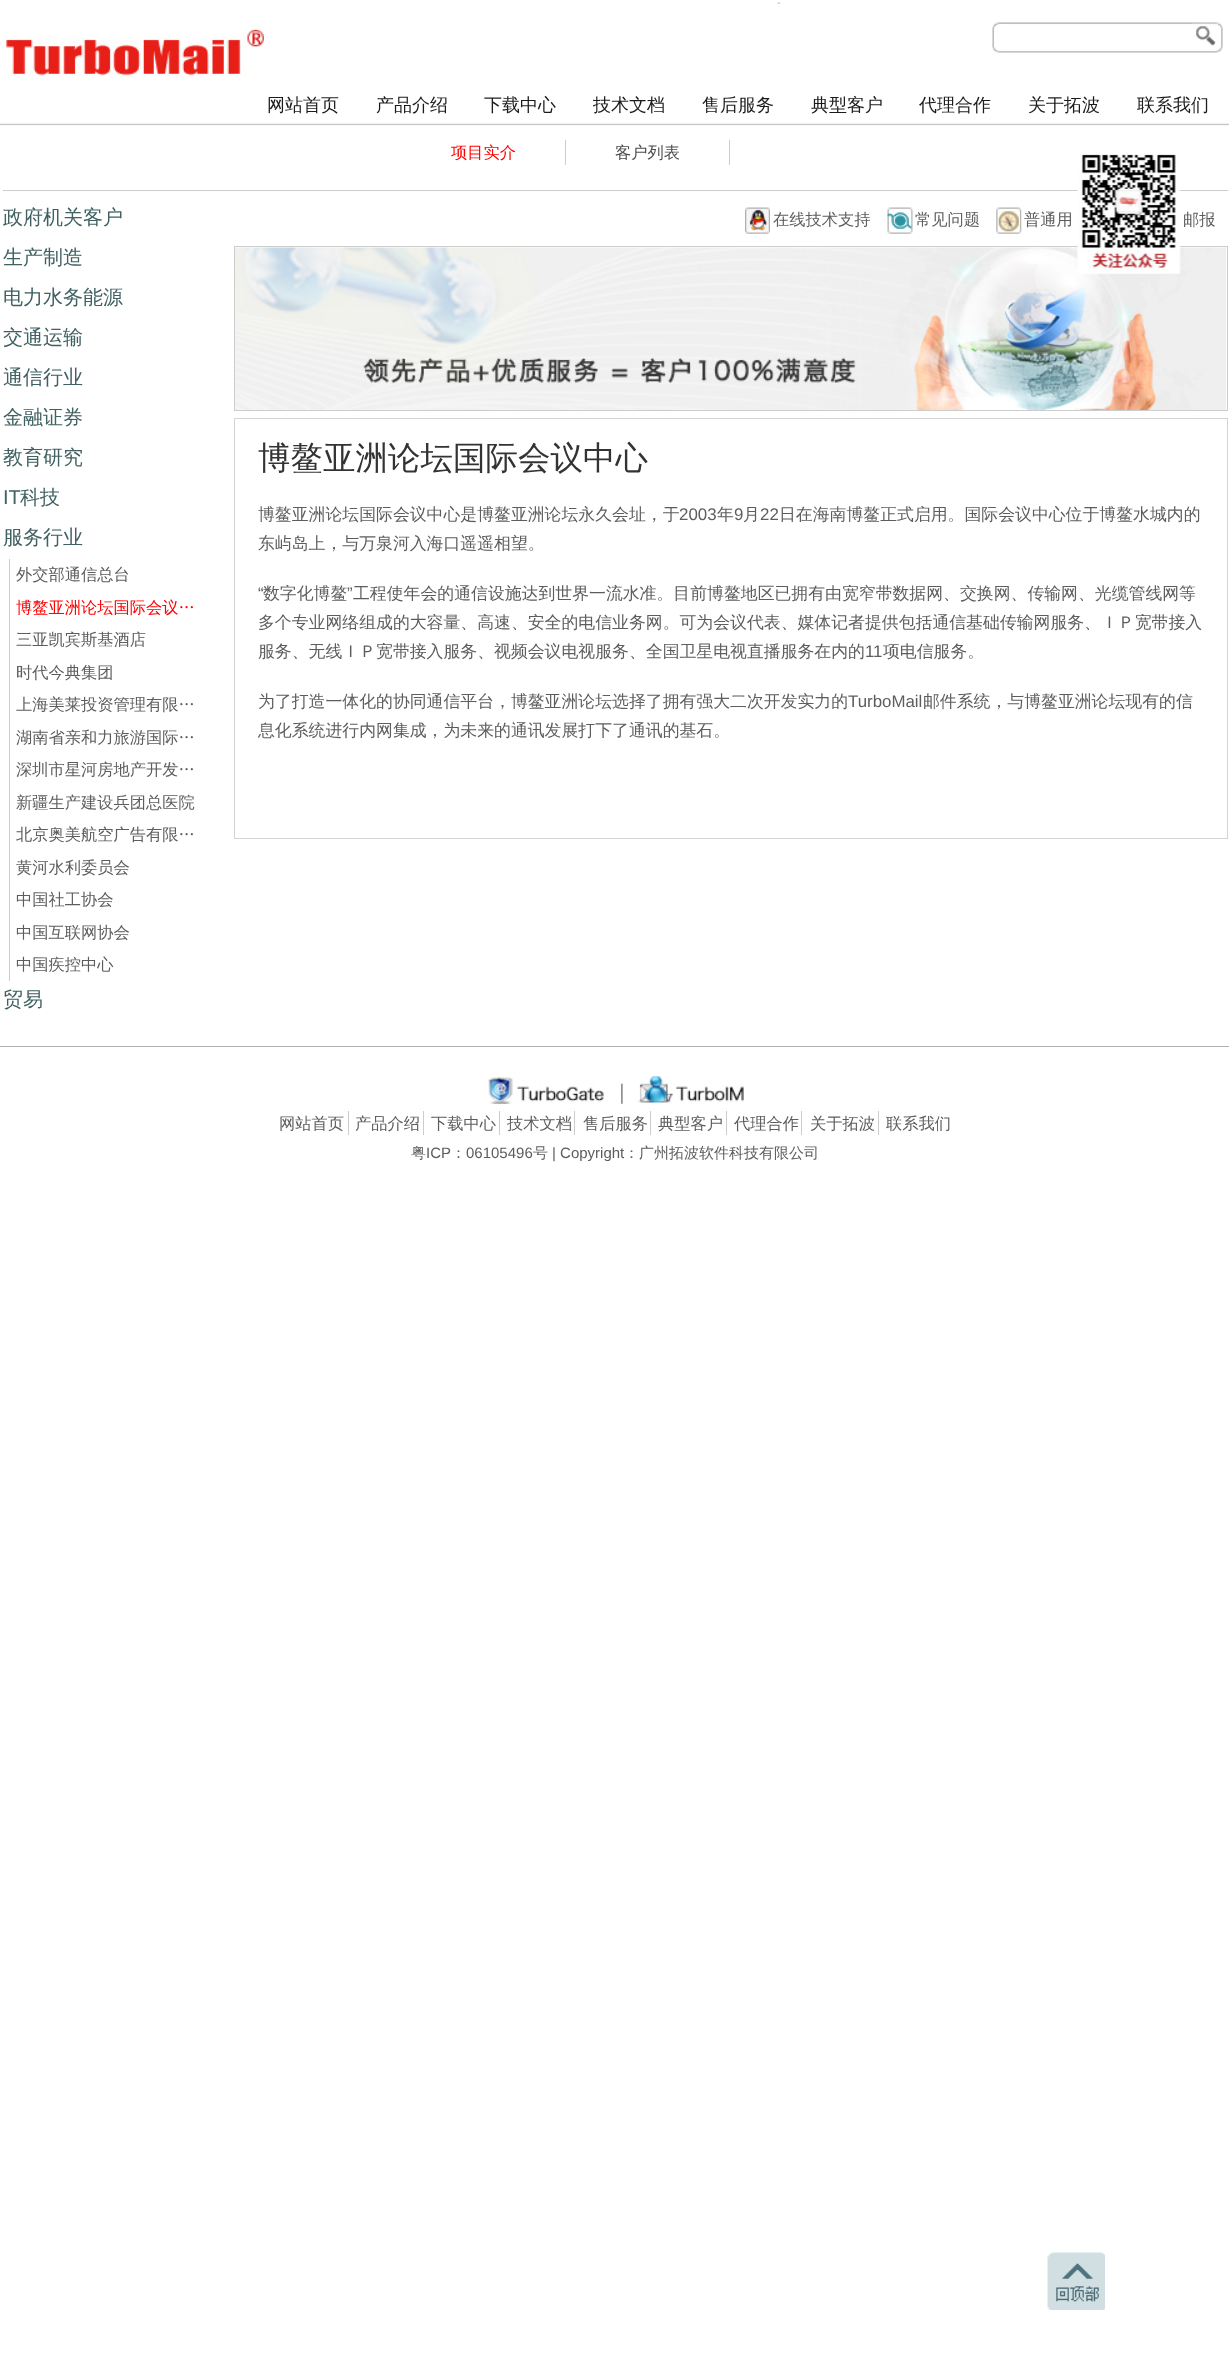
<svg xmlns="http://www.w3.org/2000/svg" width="1229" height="2359">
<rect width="100%" height="100%" fill="#fff"/>
<image x="0" y="2" width="1229" height="124" href="media/1.png"/>
<image x="4" y="29" width="260" height="47" href="media/2.png"/>
<image x="992" y="22" width="231" height="31" href="media/3.png"/>
<rect x="999" y="24" width="8" height="1" fill="#fff"/>
<image x="1192" y="23" width="26" height="23" href="media/4.png"/>
<text x="267" y="111" style="font-family:WenQuanYi Zen Hei;font-size:18px;font-weight:500;fill:#1b1b1b">网站首页</text>
<text x="376" y="111" style="font-family:WenQuanYi Zen Hei;font-size:18px;font-weight:500;fill:#1b1b1b">产品介绍</text>
<text x="484" y="111" style="font-family:WenQuanYi Zen Hei;font-size:18px;font-weight:500;fill:#1b1b1b">下载中心</text>
<text x="593" y="111" style="font-family:WenQuanYi Zen Hei;font-size:18px;font-weight:500;fill:#1b1b1b">技术文档</text>
<text x="702" y="111" style="font-family:WenQuanYi Zen Hei;font-size:18px;font-weight:500;fill:#1b1b1b">售后服务</text>
<text x="811" y="111" style="font-family:WenQuanYi Zen Hei;font-size:18px;font-weight:500;fill:#1b1b1b">典型客户</text>
<text x="919" y="111" style="font-family:WenQuanYi Zen Hei;font-size:18px;font-weight:500;fill:#1b1b1b">代理合作</text>
<text x="1028" y="111" style="font-family:WenQuanYi Zen Hei;font-size:18px;font-weight:500;fill:#1b1b1b">关于拓波</text>
<text x="1137" y="111" style="font-family:WenQuanYi Zen Hei;font-size:18px;font-weight:500;fill:#1b1b1b">联系我们</text>
<rect x="565" y="140" width="1" height="25" fill="#ccc"/>
<text x="451" y="158" style="font-family:WenQuanYi Zen Hei;font-size:16.25px;font-weight:500;fill:#f00">项目实介</text>
<rect x="729" y="140" width="1" height="25" fill="#ccc"/>
<text x="615" y="158" style="font-family:WenQuanYi Zen Hei;font-size:16.25px;font-weight:500;fill:#4b4b4b">客户列表</text>
<rect x="3" y="190" width="1225" height="1" fill="#ccc"/>
<text x="3" y="224" style="font-family:WenQuanYi Zen Hei;font-size:20px;font-weight:500;fill:#406062">政府机关客户</text>
<text x="3" y="264" style="font-family:WenQuanYi Zen Hei;font-size:20px;font-weight:500;fill:#406062">生产制造</text>
<text x="3" y="304" style="font-family:WenQuanYi Zen Hei;font-size:20px;font-weight:500;fill:#406062">电力水务能源</text>
<text x="3" y="344" style="font-family:WenQuanYi Zen Hei;font-size:20px;font-weight:500;fill:#406062">交通运输</text>
<text x="3" y="384" style="font-family:WenQuanYi Zen Hei;font-size:20px;font-weight:500;fill:#406062">通信行业</text>
<text x="3" y="424" style="font-family:WenQuanYi Zen Hei;font-size:20px;font-weight:500;fill:#406062">金融证券</text>
<text x="3" y="464" style="font-family:WenQuanYi Zen Hei;font-size:20px;font-weight:500;fill:#406062">教育研究</text>
<text x="3" y="504" style="font-family:Liberation Sans;font-size:20px;fill:#406062">IT</text>
<text x="20" y="504" style="font-family:WenQuanYi Zen Hei;font-size:20px;font-weight:500;fill:#406062">科技</text>
<text x="3" y="544" style="font-family:WenQuanYi Zen Hei;font-size:20px;font-weight:500;fill:#406062">服务行业</text>
<rect x="9" y="559" width="1" height="422" fill="#ccc"/>
<text x="16" y="580" style="font-family:WenQuanYi Zen Hei;font-size:16.25px;font-weight:500;fill:#5d5d5d">外交部通信总台</text>
<text x="16" y="613" style="font-family:WenQuanYi Zen Hei;font-size:16.25px;font-weight:500;fill:#f00">博鳌亚洲论坛国际会议…</text>
<text x="16" y="645" style="font-family:WenQuanYi Zen Hei;font-size:16.25px;font-weight:500;fill:#5d5d5d">三亚凯宾斯基酒店</text>
<text x="16" y="678" style="font-family:WenQuanYi Zen Hei;font-size:16.25px;font-weight:500;fill:#5d5d5d">时代今典集团</text>
<text x="16" y="710" style="font-family:WenQuanYi Zen Hei;font-size:16.25px;font-weight:500;fill:#5d5d5d">上海美莱投资管理有限…</text>
<text x="16" y="743" style="font-family:WenQuanYi Zen Hei;font-size:16.25px;font-weight:500;fill:#5d5d5d">湖南省亲和力旅游国际…</text>
<text x="16" y="775" style="font-family:WenQuanYi Zen Hei;font-size:16.25px;font-weight:500;fill:#5d5d5d">深圳市星河房地产开发…</text>
<text x="16" y="808" style="font-family:WenQuanYi Zen Hei;font-size:16.25px;font-weight:500;fill:#5d5d5d">新疆生产建设兵团总医院</text>
<text x="16" y="840" style="font-family:WenQuanYi Zen Hei;font-size:16.25px;font-weight:500;fill:#5d5d5d">北京奥美航空广告有限…</text>
<text x="16" y="873" style="font-family:WenQuanYi Zen Hei;font-size:16.25px;font-weight:500;fill:#5d5d5d">黄河水利委员会</text>
<text x="16" y="905" style="font-family:WenQuanYi Zen Hei;font-size:16.25px;font-weight:500;fill:#5d5d5d">中国社工协会</text>
<text x="16" y="938" style="font-family:WenQuanYi Zen Hei;font-size:16.25px;font-weight:500;fill:#5d5d5d">中国互联网协会</text>
<text x="16" y="970" style="font-family:WenQuanYi Zen Hei;font-size:16.25px;font-weight:500;fill:#5d5d5d">中国疾控中心</text>
<text x="3" y="1006" style="font-family:WenQuanYi Zen Hei;font-size:20px;font-weight:500;fill:#406062">贸易</text>
<image x="745" y="207" width="25" height="27" href="media/5.png"/>
<text x="773" y="225" style="font-family:WenQuanYi Zen Hei;font-size:16.25px;font-weight:500;fill:#5d5d5d">在线技术支持</text>
<image x="887" y="207" width="26" height="27" href="media/6.png"/>
<text x="915" y="225" style="font-family:WenQuanYi Zen Hei;font-size:16.25px;font-weight:500;fill:#5d5d5d">常见问题</text>
<image x="996" y="207" width="26" height="27" href="media/7.png"/>
<text x="1024" y="225" style="font-family:WenQuanYi Zen Hei;font-size:16.25px;font-weight:500;fill:#5d5d5d">普通用</text>
<text x="1183" y="225" style="font-family:WenQuanYi Zen Hei;font-size:16.25px;font-weight:500;fill:#5d5d5d">邮报</text>
<rect x="234.5" y="246.5" width="993" height="164" fill="none" stroke="#cdcdce"/>
<image x="235" y="247" width="992" height="163" href="media/8.png"/>
<rect x="234.5" y="418.5" width="993" height="420" fill="none" stroke="#d5d4d4"/>
<text x="258" y="469" style="font-family:WenQuanYi Zen Hei;font-size:32.5px;font-weight:500;fill:#333">博鳌亚洲论坛国际会议中心</text>
<text x="258" y="520" style="font-family:WenQuanYi Zen Hei;font-size:16.88px;font-weight:500;fill:#5d5d5d">博鳌亚洲论坛国际会议中心是博鳌亚洲论坛永久会址，于</text>
<text x="679" y="520" style="font-family:Liberation Sans;font-size:16.88px;fill:#5d5d5d">2003</text>
<text x="717" y="520" style="font-family:WenQuanYi Zen Hei;font-size:16.88px;font-weight:500;fill:#5d5d5d">年</text>
<text x="734" y="520" style="font-family:Liberation Sans;font-size:16.88px;fill:#5d5d5d">9</text>
<text x="743" y="520" style="font-family:WenQuanYi Zen Hei;font-size:16.88px;font-weight:500;fill:#5d5d5d">月</text>
<text x="760" y="520" style="font-family:Liberation Sans;font-size:16.88px;fill:#5d5d5d">22</text>
<text x="779" y="520" style="font-family:WenQuanYi Zen Hei;font-size:16.88px;font-weight:500;fill:#5d5d5d">日在海南博鳌正式启用。国际会议中心位于博鳌水城内的</text>
<text x="258" y="549" style="font-family:WenQuanYi Zen Hei;font-size:16.88px;font-weight:500;fill:#5d5d5d">东屿岛上，与万泉河入海口遥遥相望。</text>
<text x="258" y="599" style="font-family:Liberation Sans;font-size:16.88px;fill:#5d5d5d">“</text>
<text x="263" y="599" style="font-family:WenQuanYi Zen Hei;font-size:16.88px;font-weight:500;fill:#5d5d5d">数字化博鳌</text>
<text x="347" y="599" style="font-family:Liberation Sans;font-size:16.88px;fill:#5d5d5d">”</text>
<text x="353" y="599" style="font-family:WenQuanYi Zen Hei;font-size:16.88px;font-weight:500;fill:#5d5d5d">工程使年会的通信设施达到世界一流水准。目前博鳌地区已拥有由宽窄带数据网、交换网、传输网、光缆管线网等</text>
<text x="258" y="628" style="font-family:WenQuanYi Zen Hei;font-size:16.88px;font-weight:500;fill:#5d5d5d">多个专业网络组成的大容量、高速、安全的电信业务网。可为会议代表、媒体记者提供包括通信基础传输网服务、ＩＰ宽带接入</text>
<text x="258" y="657" style="font-family:WenQuanYi Zen Hei;font-size:16.88px;font-weight:500;fill:#5d5d5d">服务、无线ＩＰ宽带接入服务、视频会议电视服务、全国卫星电视直播服务在内的</text>
<text x="865" y="657" style="font-family:Liberation Sans;font-size:16.88px;fill:#5d5d5d">11</text>
<text x="883" y="657" style="font-family:WenQuanYi Zen Hei;font-size:16.88px;font-weight:500;fill:#5d5d5d">项电信服务。</text>
<text x="258" y="707" style="font-family:WenQuanYi Zen Hei;font-size:16.88px;font-weight:500;fill:#5d5d5d">为了打造一体化的协同通信平台，博鳌亚洲论坛选择了拥有强大二次开发实力的</text>
<text x="848" y="707" style="font-family:Liberation Sans;font-size:16.88px;fill:#5d5d5d">TurboMail</text>
<text x="923" y="707" style="font-family:WenQuanYi Zen Hei;font-size:16.88px;font-weight:500;fill:#5d5d5d">邮件系统，与博鳌亚洲论坛现有的信</text>
<text x="258" y="736" style="font-family:WenQuanYi Zen Hei;font-size:16.88px;font-weight:500;fill:#5d5d5d">息化系统进行内网集成，为未来的通讯发展打下了通讯的基石。</text>
<image x="1077" y="154" width="104" height="120" href="media/9.png"/>
<rect y="1046" width="1229" height="1" fill="#b1b1b1"/>
<image x="488" y="1076" width="256" height="28" href="media/10.png"/>
<text x="279" y="1129" style="font-family:WenQuanYi Zen Hei;font-size:16.25px;font-weight:500;fill:#5d5d5d">网站首页</text>
<rect x="348" y="1111" width="1" height="24" fill="#ccc"/>
<text x="355" y="1129" style="font-family:WenQuanYi Zen Hei;font-size:16.25px;font-weight:500;fill:#5d5d5d">产品介绍</text>
<rect x="423" y="1111" width="1" height="24" fill="#ccc"/>
<text x="431" y="1129" style="font-family:WenQuanYi Zen Hei;font-size:16.25px;font-weight:500;fill:#5d5d5d">下载中心</text>
<rect x="499" y="1111" width="1" height="24" fill="#ccc"/>
<text x="507" y="1129" style="font-family:WenQuanYi Zen Hei;font-size:16.25px;font-weight:500;fill:#5d5d5d">技术文档</text>
<rect x="574" y="1111" width="1" height="24" fill="#ccc"/>
<text x="583" y="1129" style="font-family:WenQuanYi Zen Hei;font-size:16.25px;font-weight:500;fill:#5d5d5d">售后服务</text>
<rect x="650" y="1111" width="1" height="24" fill="#ccc"/>
<text x="658" y="1129" style="font-family:WenQuanYi Zen Hei;font-size:16.25px;font-weight:500;fill:#5d5d5d">典型客户</text>
<rect x="726" y="1111" width="1" height="24" fill="#ccc"/>
<text x="734" y="1129" style="font-family:WenQuanYi Zen Hei;font-size:16.25px;font-weight:500;fill:#5d5d5d">代理合作</text>
<rect x="801" y="1111" width="1" height="24" fill="#ccc"/>
<text x="810" y="1129" style="font-family:WenQuanYi Zen Hei;font-size:16.25px;font-weight:500;fill:#5d5d5d">关于拓波</text>
<rect x="878" y="1111" width="1" height="24" fill="#ccc"/>
<text x="886" y="1129" style="font-family:WenQuanYi Zen Hei;font-size:16.25px;font-weight:500;fill:#5d5d5d">联系我们</text>
<text x="411" y="1158" style="font-family:WenQuanYi Zen Hei;font-size:15px;font-weight:500;fill:#5d5d5d">粤</text>
<text x="426" y="1158" style="font-family:Liberation Sans;font-size:15px;fill:#5d5d5d">ICP</text>
<text x="451" y="1158" style="font-family:WenQuanYi Zen Hei;font-size:15px;font-weight:500;fill:#5d5d5d">：</text>
<text x="466" y="1158" style="font-family:Liberation Sans;font-size:15px;fill:#5d5d5d">06105496</text>
<text x="533" y="1158" style="font-family:WenQuanYi Zen Hei;font-size:15px;font-weight:500;fill:#5d5d5d">号</text>
<text x="552" y="1158" style="font-family:Liberation Sans;font-size:15px;fill:#5d5d5d">| Copyright</text>
<text x="624" y="1158" style="font-family:WenQuanYi Zen Hei;font-size:15px;font-weight:500;fill:#5d5d5d">：广州拓波软件科技有限公司</text>
<image x="1047" y="2252" width="58" height="58" href="media/11.png"/>
</svg>
